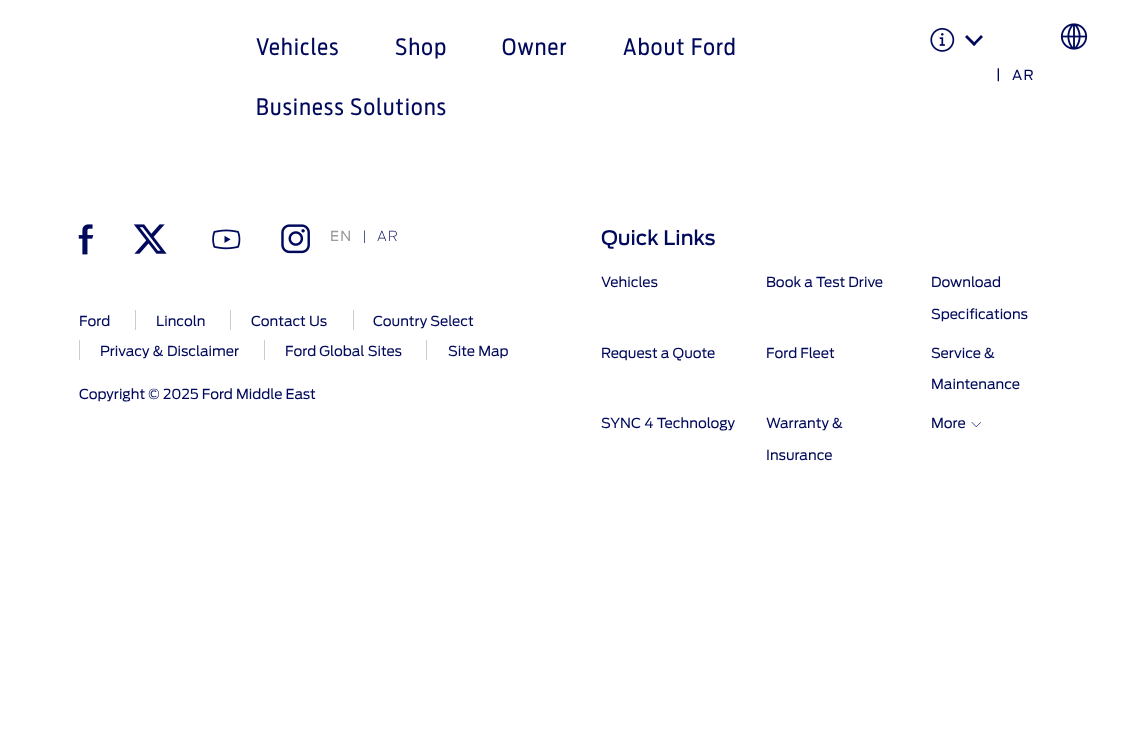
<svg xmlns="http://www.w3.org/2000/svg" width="1145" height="751">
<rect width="100%" height="100%" fill="#fff"/>
<text x="256" y="55" style="font-family:'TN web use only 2';font-size:22.5px;letter-spacing:1.25px;fill:#00095b">Vehicles</text>
<text x="395" y="55" style="font-family:'TN web use only 2';font-size:22.5px;letter-spacing:1.25px;fill:#00095b">Shop</text>
<text x="502" y="55" style="font-family:'TN web use only 2';font-size:22.5px;letter-spacing:1.25px;fill:#00095b">Owner</text>
<text x="623" y="55" style="font-family:'TN web use only 2';font-size:22.5px;letter-spacing:1.25px;fill:#00095b">About Ford</text>
<text x="256" y="115" style="font-family:'TN web use only 2';font-size:22.5px;letter-spacing:1.25px;fill:#00095b">Business Solutions</text>
<image x="930" y="28" width="25" height="24" href="media/1.png"/>
<path d="M981 35l2 2l-9 9l-1.5-2z" fill="#00095b"/>
<path d="M967 35l9 9l-2 2l-9-9z" fill="#00095b"/>
<text x="996" y="79" style="font-family:'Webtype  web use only';font-size:13.75px;fill:#00095b">|</text>
<text x="1012" y="80" style="font-family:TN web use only;font-size:13.75px;letter-spacing:1.25px;fill:#00095b">AR</text>
<image x="1060" y="23" width="28" height="27" href="media/2.png"/>
<image x="78" y="224" width="16" height="31" href="media/3.png"/>
<image x="133" y="224" width="34" height="30" href="media/4.png"/>
<image x="212" y="229" width="29" height="21" href="media/5.png"/>
<image x="281" y="224" width="29" height="30" href="media/6.png"/>
<text x="330" y="241" style="font-family:'Webtype  web use only';font-size:13.75px;letter-spacing:1.25px;fill:#9c9c9c">EN</text>
<text x="363" y="240" style="font-family:Liberation Serif;font-size:13.75px;fill:#00095b">|</text>
<text x="377" y="241" style="font-family:'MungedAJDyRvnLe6';font-size:13.75px;font-weight:200;letter-spacing:1.25px;fill:#00095b">AR</text>
<text x="79" y="326" style="font-family:TN web use only;font-size:13.75px;fill:#00095b">Ford</text>
<text x="156" y="326" style="font-family:TN web use only;font-size:13.75px;fill:#00095b">Lincoln</text>
<rect x="135" y="310" width="1" height="20" fill="#ccc"/>
<text x="251" y="326" style="font-family:TN web use only;font-size:13.75px;fill:#00095b">Contact Us</text>
<rect x="230" y="310" width="1" height="20" fill="#ccc"/>
<text x="373" y="326" style="font-family:TN web use only;font-size:13.75px;fill:#00095b">Country Select</text>
<rect x="353" y="310" width="1" height="20" fill="#ccc"/>
<text x="100" y="356" style="font-family:TN web use only;font-size:13.75px;fill:#00095b">Privacy &amp; Disclaimer</text>
<rect x="79" y="340" width="1" height="20" fill="#ccc"/>
<text x="285" y="356" style="font-family:TN web use only;font-size:13.75px;fill:#00095b">Ford Global Sites</text>
<rect x="264" y="340" width="1" height="20" fill="#ccc"/>
<text x="448" y="356" style="font-family:TN web use only;font-size:13.75px;fill:#00095b">Site Map</text>
<rect x="426" y="340" width="1" height="20" fill="#ccc"/>
<text x="79" y="399" style="font-family:'Webtype  web use only';font-size:13.75px;fill:#00095b">Copyright © 2025 Ford Middle East</text>
<text x="601" y="245" style="font-family:TN web use only;font-size:20px;font-weight:500;fill:#00095b">Quick Links</text>
<text x="601" y="287" style="font-family:TN web use only;font-size:13.75px;fill:#00095b">Vehicles</text>
<text x="766" y="287" style="font-family:TN web use only;font-size:13.75px;fill:#00095b">Book a Test Drive</text>
<text x="931" y="287" style="font-family:TN web use only;font-size:13.75px;fill:#00095b">Download</text>
<text x="931" y="319" style="font-family:TN web use only;font-size:13.75px;fill:#00095b">Specifications</text>
<text x="601" y="358" style="font-family:TN web use only;font-size:13.75px;fill:#00095b">Request a Quote</text>
<text x="766" y="358" style="font-family:TN web use only;font-size:13.75px;fill:#00095b">Ford Fleet</text>
<text x="931" y="358" style="font-family:TN web use only;font-size:13.75px;fill:#00095b">Service &amp;</text>
<text x="931" y="389" style="font-family:TN web use only;font-size:13.75px;fill:#00095b">Maintenance</text>
<text x="601" y="428" style="font-family:TN web use only;font-size:13.75px;fill:#00095b">SYNC 4 Technology</text>
<text x="766" y="428" style="font-family:TN web use only;font-size:13.75px;fill:#00095b">Warranty &amp;</text>
<text x="766" y="460" style="font-family:TN web use only;font-size:13.75px;fill:#00095b">Insurance</text>
<text x="931" y="428" style="font-family:TN web use only;font-size:13.75px;fill:#00095b">More</text>
<image x="971" y="422" width="10" height="5" href="media/7.png"/>
</svg>
